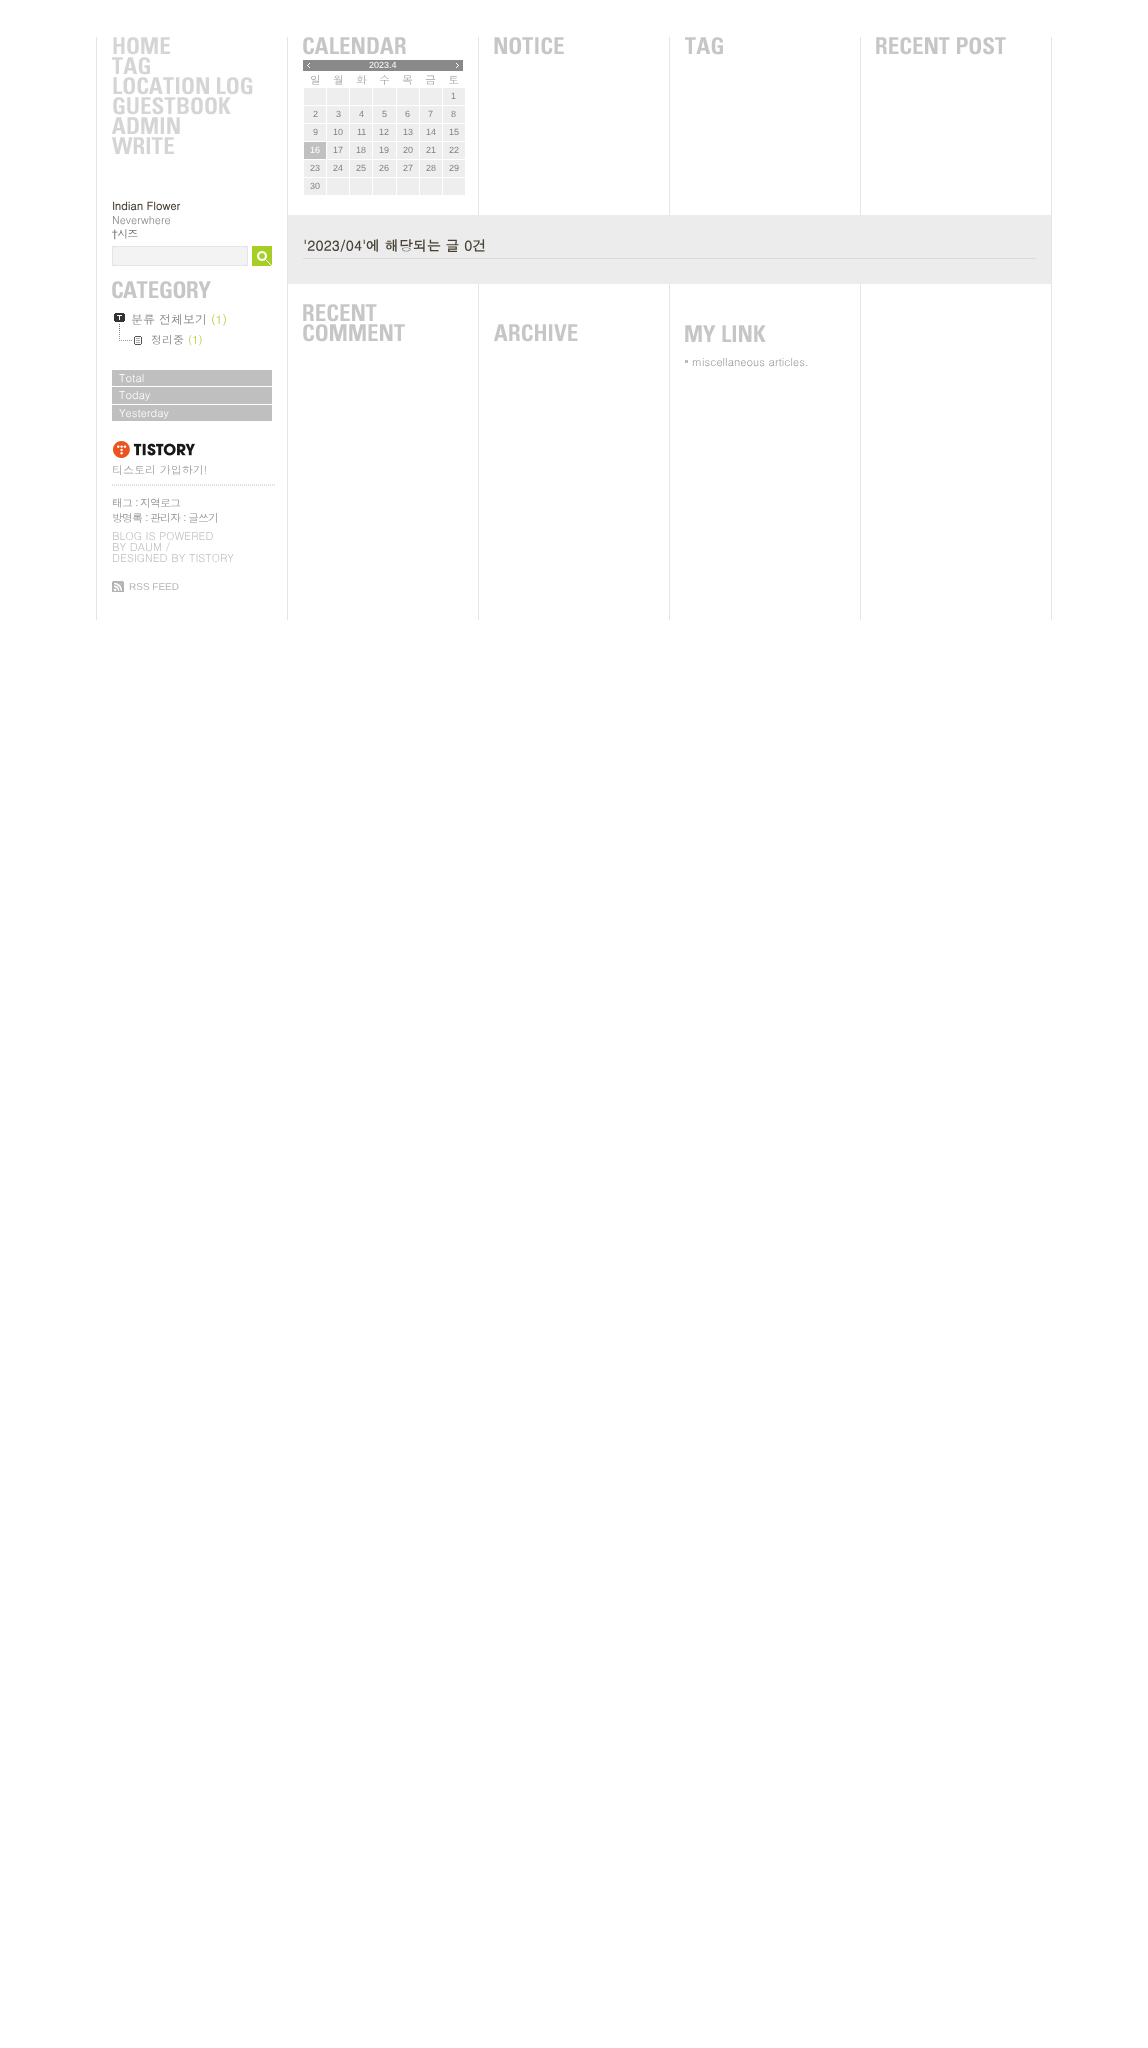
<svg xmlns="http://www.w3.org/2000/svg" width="1148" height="2048">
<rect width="100%" height="100%" fill="#fff"/>
<image x="96" y="37" width="956" height="583" href="media/1.png"/>
<image x="113" y="37" width="57" height="18" href="media/2.png"/>
<image x="112" y="57" width="38" height="18" href="media/3.png"/>
<image x="113" y="77" width="140" height="18" href="media/4.png"/>
<image x="113" y="97" width="118" height="18" href="media/5.png"/>
<image x="112" y="117" width="68" height="17" href="media/6.png"/>
<image x="112" y="137" width="62" height="17" href="media/7.png"/>
<text x="112" y="210" style="font-family:Dotum;font-size:11px;font-weight:bold;fill:#474035">Indian Flower</text>
<text x="112" y="224" style="font-family:Dotum;font-size:11px;fill:#828282">Neverwhere</text>
<text x="112" y="238" style="font-family:Dotum;font-size:11px;letter-spacing:-1px;fill:#717171">†시즈</text>
<rect x="112.5" y="246.5" width="135" height="19" fill="#f3f3f3" stroke="#e4e4e4"/>
<image x="252" y="246" width="20" height="20" href="media/8.png"/>
<image x="112" y="281" width="99" height="18" href="media/9.png"/>
<image x="114" y="313" width="11" height="18" href="media/10.png"/>
<text x="131" y="324" style="font-family:Dotum;font-size:12px;fill:#828282">분류 전체보기</text>
<text x="211" y="324" style="font-family:Dotum;font-size:12px;fill:#a7ce25">(1)</text>
<image x="119" y="332" width="1" height="9" href="media/11.png"/>
<image x="121" y="336" width="21" height="9" href="media/12.png"/>
<text x="151" y="344" style="font-family:Dotum;font-size:11px;fill:#828282">정리중</text>
<text x="188" y="344" style="font-family:Dotum;font-size:11px;fill:#a7ce25">(1)</text>
<rect x="112" y="370" width="160" height="16" fill="#bfbfbf"/>
<text x="119" y="382" style="font-family:Dotum;font-size:11px;fill:#fff">Total</text>
<rect x="112" y="387" width="160" height="17" fill="#bfbfbf"/>
<text x="119" y="399" style="font-family:Dotum;font-size:11px;fill:#fff">Today</text>
<rect x="112" y="405" width="160" height="16" fill="#bfbfbf"/>
<text x="119" y="417" style="font-family:Dotum;font-size:11px;fill:#fff">Yesterday</text>
<image x="113" y="441" width="82" height="17" href="media/13.png"/>
<text x="112" y="474" style="font-family:Dotum;font-size:11px;fill:#9d9d9d">티스토리 가입하기!</text>
<image x="112" y="484" width="163" height="2" href="media/14.png"/>
<text x="112" y="507" style="font-family:Dotum;font-size:11px;letter-spacing:-1px;fill:#929292">태그</text>
<text x="135" y="507" style="font-family:Dotum;font-size:11px;letter-spacing:-1px;fill:#717171">:</text>
<text x="140" y="507" style="font-family:Dotum;font-size:11px;letter-spacing:-1px;fill:#929292">지역로그</text>
<text x="112" y="522" style="font-family:Dotum;font-size:11px;letter-spacing:-1px;fill:#929292">방명록</text>
<text x="145" y="522" style="font-family:Dotum;font-size:11px;letter-spacing:-1px;fill:#717171">:</text>
<text x="150" y="522" style="font-family:Dotum;font-size:11px;letter-spacing:-1px;fill:#929292">관리자</text>
<text x="183" y="522" style="font-family:Dotum;font-size:11px;letter-spacing:-1px;fill:#717171">:</text>
<text x="188" y="522" style="font-family:Dotum;font-size:11px;letter-spacing:-1px;fill:#929292">글쓰기</text>
<text x="112" y="540" style="font-family:Dotum;font-size:11px;fill:#c2c2c2">BLOG IS POWERED</text>
<text x="112" y="551" style="font-family:Dotum;font-size:11px;fill:#c2c2c2">BY DAUM /</text>
<text x="112" y="562" style="font-family:Dotum;font-size:11px;fill:#c2c2c2">DESIGNED BY TISTORY</text>
<image x="112" y="581" width="12" height="11" href="media/15.png"/>
<text x="129" y="590" style="font-family:Liberation Sans;font-size:10px;fill:#b6b6b6">RSS FEED</text>
<image x="494" y="37" width="70" height="18" href="media/16.png"/>
<image x="685" y="37" width="38" height="18" href="media/17.png"/>
<image x="876" y="37" width="130" height="18" href="media/18.png"/>
<image x="303" y="37" width="103" height="18" href="media/19.png"/>
<rect x="303" y="60" width="160" height="11" fill="#898989"/>
<image x="307" y="63" width="3" height="5" href="media/20.png"/>
<text x="369" y="68" style="font-family:Liberation Sans;font-size:9px;fill:#fff">2023.4</text>
<image x="456" y="63" width="3" height="5" href="media/21.png"/>
<text x="310" y="84" style="font-family:Dotum;font-size:11px;fill:#a5a5a4">일</text>
<text x="333" y="84" style="font-family:Dotum;font-size:11px;fill:#a5a5a4">월</text>
<text x="356" y="84" style="font-family:Dotum;font-size:11px;fill:#a5a5a4">화</text>
<text x="379" y="84" style="font-family:Dotum;font-size:11px;fill:#a5a5a4">수</text>
<text x="402" y="84" style="font-family:Dotum;font-size:11px;fill:#a5a5a4">목</text>
<text x="425" y="84" style="font-family:Dotum;font-size:11px;fill:#a5a5a4">금</text>
<text x="448" y="84" style="font-family:Dotum;font-size:11px;fill:#a5a5a4">토</text>
<rect x="304" y="88" width="22" height="17" fill="#eee"/>
<rect x="327" y="88" width="22" height="17" fill="#eee"/>
<rect x="350" y="88" width="22" height="17" fill="#eee"/>
<rect x="373" y="88" width="23" height="17" fill="#eee"/>
<rect x="397" y="88" width="22" height="17" fill="#eee"/>
<rect x="420" y="88" width="22" height="17" fill="#eee"/>
<rect x="443" y="88" width="22" height="17" fill="#eee"/>
<text x="451" y="99" style="font-family:Liberation Sans;font-size:9px;fill:#828282">1</text>
<rect x="304" y="106" width="22" height="17" fill="#eee"/>
<text x="313" y="117" style="font-family:Liberation Sans;font-size:9px;fill:#828282">2</text>
<rect x="327" y="106" width="22" height="17" fill="#eee"/>
<text x="336" y="117" style="font-family:Liberation Sans;font-size:9px;fill:#828282">3</text>
<rect x="350" y="106" width="22" height="17" fill="#eee"/>
<text x="359" y="117" style="font-family:Liberation Sans;font-size:9px;fill:#828282">4</text>
<rect x="373" y="106" width="23" height="17" fill="#eee"/>
<text x="382" y="117" style="font-family:Liberation Sans;font-size:9px;fill:#828282">5</text>
<rect x="397" y="106" width="22" height="17" fill="#eee"/>
<text x="405" y="117" style="font-family:Liberation Sans;font-size:9px;fill:#828282">6</text>
<rect x="420" y="106" width="22" height="17" fill="#eee"/>
<text x="428" y="117" style="font-family:Liberation Sans;font-size:9px;fill:#828282">7</text>
<rect x="443" y="106" width="22" height="17" fill="#eee"/>
<text x="451" y="117" style="font-family:Liberation Sans;font-size:9px;fill:#828282">8</text>
<rect x="304" y="124" width="22" height="17" fill="#eee"/>
<text x="313" y="135" style="font-family:Liberation Sans;font-size:9px;fill:#828282">9</text>
<rect x="327" y="124" width="22" height="17" fill="#eee"/>
<text x="333" y="135" style="font-family:Liberation Sans;font-size:9px;fill:#828282">10</text>
<rect x="350" y="124" width="22" height="17" fill="#eee"/>
<text x="357" y="135" style="font-family:Liberation Sans;font-size:9px;fill:#828282">11</text>
<rect x="373" y="124" width="23" height="17" fill="#eee"/>
<text x="379" y="135" style="font-family:Liberation Sans;font-size:9px;fill:#828282">12</text>
<rect x="397" y="124" width="22" height="17" fill="#eee"/>
<text x="403" y="135" style="font-family:Liberation Sans;font-size:9px;fill:#828282">13</text>
<rect x="420" y="124" width="22" height="17" fill="#eee"/>
<text x="426" y="135" style="font-family:Liberation Sans;font-size:9px;fill:#828282">14</text>
<rect x="443" y="124" width="22" height="17" fill="#eee"/>
<text x="449" y="135" style="font-family:Liberation Sans;font-size:9px;fill:#828282">15</text>
<rect x="304" y="142" width="22" height="17" fill="#c0c0c0"/>
<text x="310" y="153" style="font-family:Liberation Sans;font-size:9px;fill:#fff">16</text>
<rect x="327" y="142" width="22" height="17" fill="#eee"/>
<text x="333" y="153" style="font-family:Liberation Sans;font-size:9px;fill:#828282">17</text>
<rect x="350" y="142" width="22" height="17" fill="#eee"/>
<text x="356" y="153" style="font-family:Liberation Sans;font-size:9px;fill:#828282">18</text>
<rect x="373" y="142" width="23" height="17" fill="#eee"/>
<text x="379" y="153" style="font-family:Liberation Sans;font-size:9px;fill:#828282">19</text>
<rect x="397" y="142" width="22" height="17" fill="#eee"/>
<text x="403" y="153" style="font-family:Liberation Sans;font-size:9px;fill:#828282">20</text>
<rect x="420" y="142" width="22" height="17" fill="#eee"/>
<text x="426" y="153" style="font-family:Liberation Sans;font-size:9px;fill:#828282">21</text>
<rect x="443" y="142" width="22" height="17" fill="#eee"/>
<text x="449" y="153" style="font-family:Liberation Sans;font-size:9px;fill:#828282">22</text>
<rect x="304" y="160" width="22" height="17" fill="#eee"/>
<text x="310" y="171" style="font-family:Liberation Sans;font-size:9px;fill:#828282">23</text>
<rect x="327" y="160" width="22" height="17" fill="#eee"/>
<text x="333" y="171" style="font-family:Liberation Sans;font-size:9px;fill:#828282">24</text>
<rect x="350" y="160" width="22" height="17" fill="#eee"/>
<text x="356" y="171" style="font-family:Liberation Sans;font-size:9px;fill:#828282">25</text>
<rect x="373" y="160" width="23" height="17" fill="#eee"/>
<text x="379" y="171" style="font-family:Liberation Sans;font-size:9px;fill:#828282">26</text>
<rect x="397" y="160" width="22" height="17" fill="#eee"/>
<text x="403" y="171" style="font-family:Liberation Sans;font-size:9px;fill:#828282">27</text>
<rect x="420" y="160" width="22" height="17" fill="#eee"/>
<text x="426" y="171" style="font-family:Liberation Sans;font-size:9px;fill:#828282">28</text>
<rect x="443" y="160" width="22" height="17" fill="#eee"/>
<text x="449" y="171" style="font-family:Liberation Sans;font-size:9px;fill:#828282">29</text>
<rect x="304" y="178" width="22" height="17" fill="#eee"/>
<text x="310" y="189" style="font-family:Liberation Sans;font-size:9px;fill:#828282">30</text>
<rect x="327" y="178" width="22" height="17" fill="#eee"/>
<rect x="350" y="178" width="22" height="17" fill="#eee"/>
<rect x="373" y="178" width="23" height="17" fill="#eee"/>
<rect x="397" y="178" width="22" height="17" fill="#eee"/>
<rect x="420" y="178" width="22" height="17" fill="#eee"/>
<rect x="443" y="178" width="22" height="17" fill="#eee"/>
<rect x="288" y="215" width="763" height="69" fill="#ececec"/>
<rect x="303" y="258" width="733" height="1" fill="#dadada"/>
<text x="303" y="251" style="font-family:Dotum;font-size:14px;font-weight:bold;fill:#474035">'2023/04'에 해당되는 글 0건</text>
<image x="303" y="304" width="102" height="38" href="media/22.png"/>
<image x="494" y="324" width="84" height="18" href="media/23.png"/>
<image x="685" y="325" width="81" height="17" href="media/24.png"/>
<rect x="685" y="360" width="3" height="3" fill="#bcbcbc"/>
<text x="692" y="366" style="font-family:Dotum;font-size:11px;fill:#989896">miscellaneous articles.</text>
</svg>
